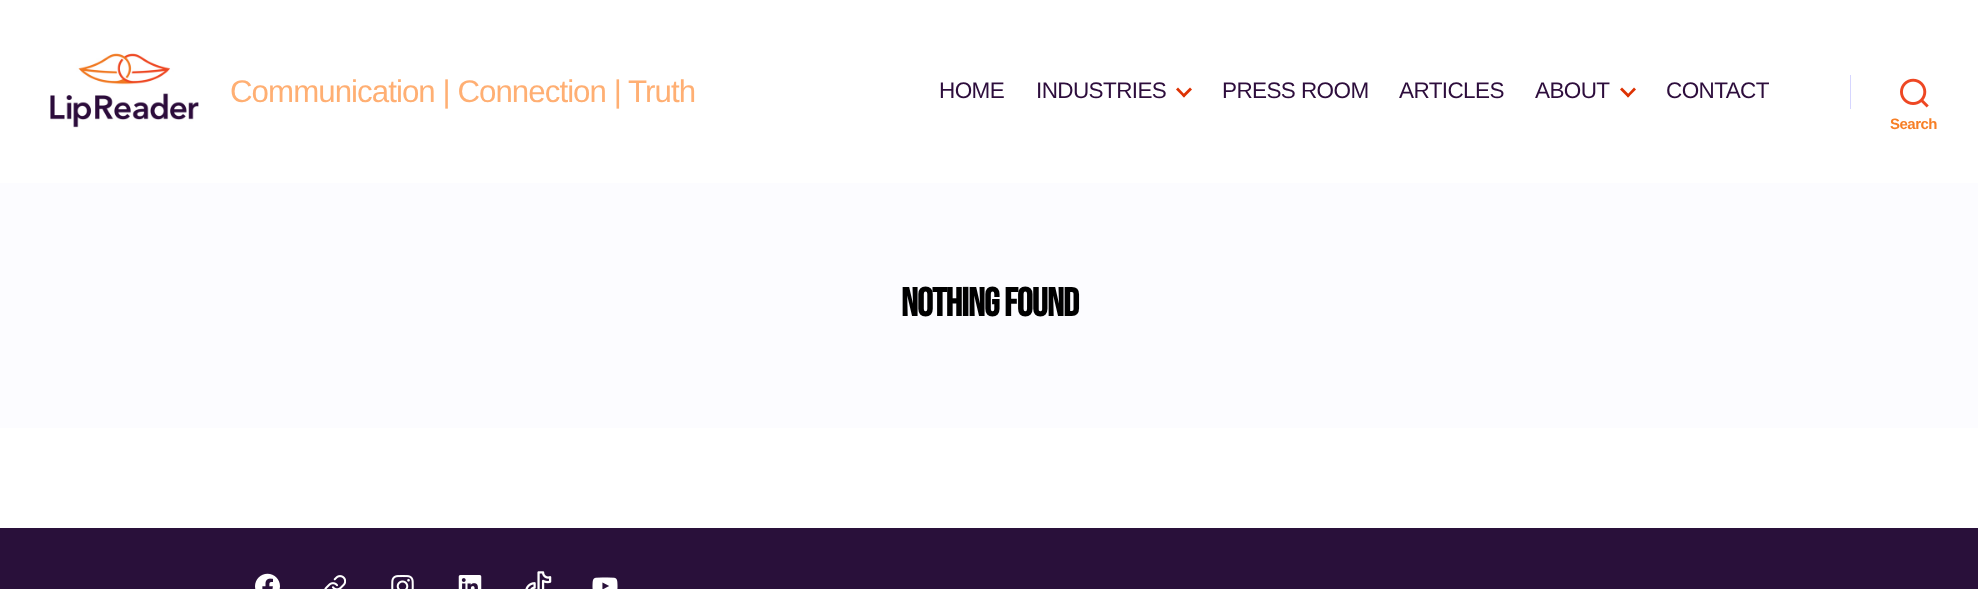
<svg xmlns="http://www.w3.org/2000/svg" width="1978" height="589">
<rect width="100%" height="100%" fill="#fff"/>
<image x="50" y="53" width="149" height="75" href="media/1.png"/>
<text x="230" y="102" style="font-family:Liberation Sans;font-size:31.25px;letter-spacing:-0.95px;fill:#ffaf73">Communication | Connection | Truth</text>
<text x="939" y="98" style="font-family:Liberation Sans;font-size:22.5px;letter-spacing:-0.6px;fill:#2d0d3c">HOME</text>
<text x="1036" y="98" style="font-family:Liberation Sans;font-size:22.5px;letter-spacing:-0.6px;fill:#2d0d3c">INDUSTRIES</text>
<path d="M1176 89.5l2-2l7.5 8l-1.5 2z" fill="#dd3203"/>
<path d="M1182 95.5l8-8l2 2l-8 8z" fill="#dd3203"/>
<text x="1222" y="98" style="font-family:Liberation Sans;font-size:22.5px;letter-spacing:-0.6px;fill:#2d0d3c">PRESS ROOM</text>
<text x="1399" y="98" style="font-family:Liberation Sans;font-size:22.5px;letter-spacing:-0.6px;fill:#2d0d3c">ARTICLES</text>
<text x="1535" y="98" style="font-family:Liberation Sans;font-size:22.5px;letter-spacing:-0.6px;fill:#2d0d3c">ABOUT</text>
<path d="M1620 89.5l2-2l8 8l-2 2z" fill="#dd3203"/>
<path d="M1626.5 95.5l7.5-8l2 2l-8 8z" fill="#dd3203"/>
<text x="1666" y="98" style="font-family:Liberation Sans;font-size:22.5px;letter-spacing:-0.6px;fill:#2d0d3c">CONTACT</text>
<rect x="1850" y="75" width="1" height="34" fill="#d6d6ff"/>
<image x="1900" y="78" width="29" height="30" href="media/2.png"/>
<text x="1890" y="129" style="font-family:Liberation Sans;font-size:15px;font-weight:bold;letter-spacing:-0.5px;fill:#f77f26">Search</text>
<rect y="183" width="1978" height="245" fill="#fcfcff"/>
<text x="901" y="316" style="font-family:Bebas Neue;font-size:40px;font-weight:bold;letter-spacing:-1px;fill:#000">Nothing Found</text>
<rect y="528" width="1978" height="61" fill="#29103a"/>
<image x="255" y="573" width="25" height="16" href="media/3.png"/>
<image x="324" y="575" width="22" height="14" href="media/4.png"/>
<image x="391" y="575" width="23" height="14" href="media/5.png"/>
<image x="458" y="575" width="24" height="14" href="media/6.png"/>
<image x="525" y="571" width="27" height="18" href="media/7.png"/>
<image x="592" y="577" width="26" height="12" href="media/8.png"/>
</svg>
